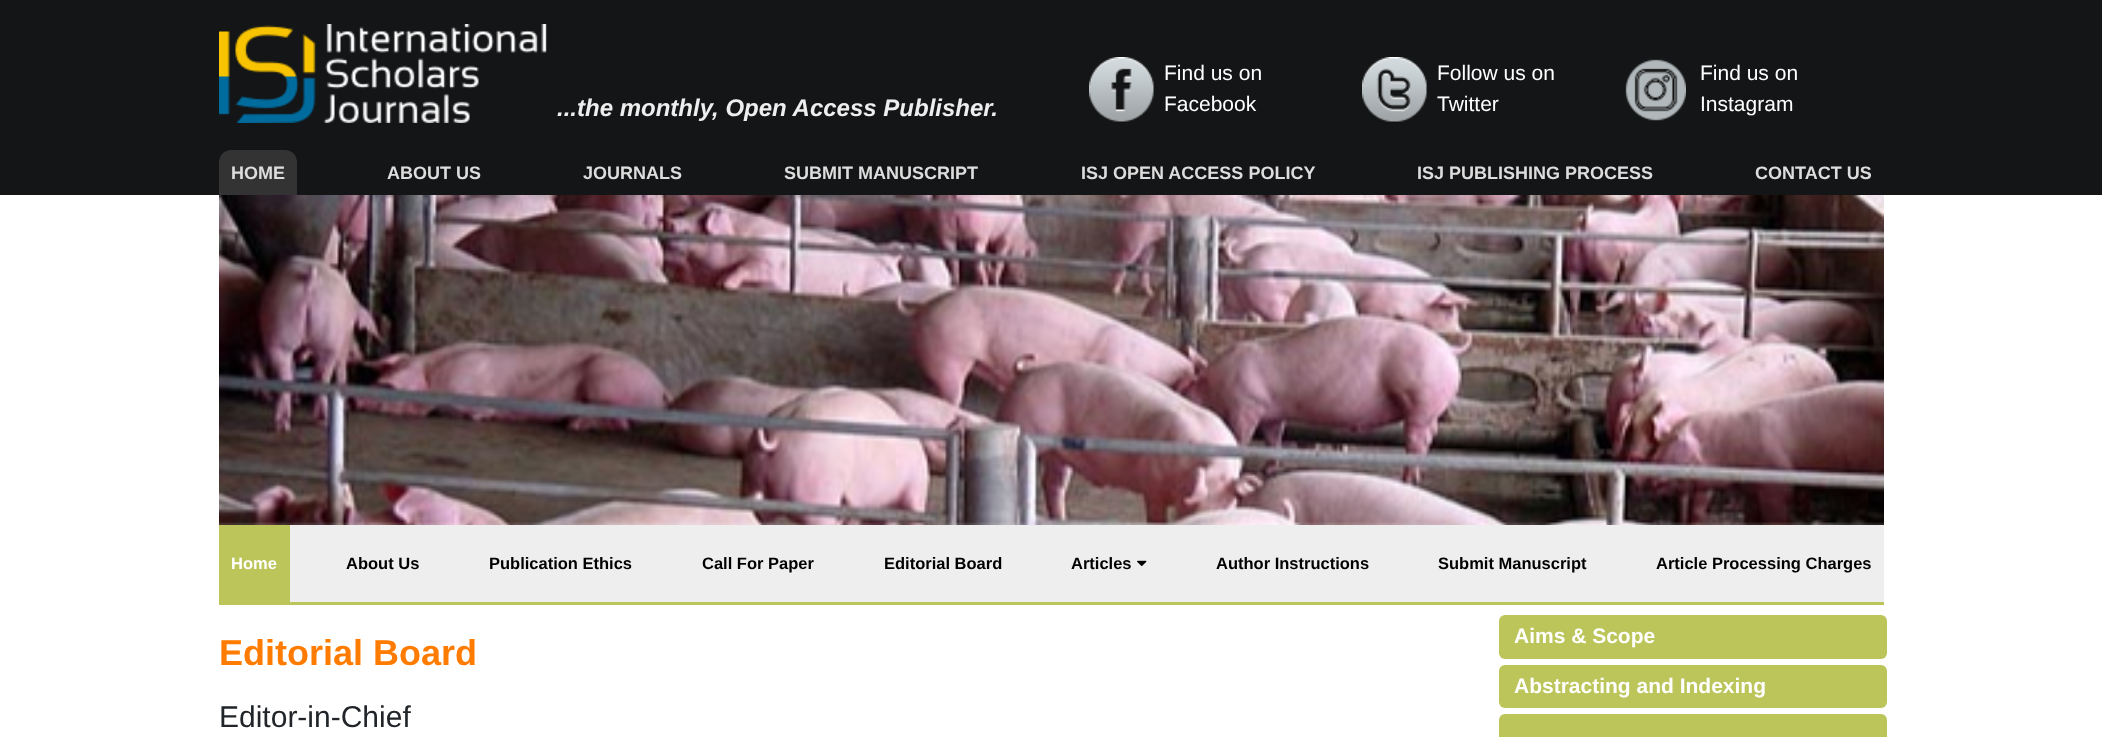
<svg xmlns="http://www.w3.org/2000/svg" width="2102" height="737">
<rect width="100%" height="100%" fill="#fff"/>
<rect width="2102" height="195" fill="#141517"/>
<image x="219" y="24" width="328" height="99" href="media/1.png"/>
<text x="557" y="116" style="font-family:Liberation Sans;font-size:24px;font-weight:bold;font-style:italic;fill:#eee">...the monthly, Open Access Publisher.</text>
<image x="1089" y="57" width="65" height="66" href="media/2.png"/>
<text x="1164" y="80" style="font-family:Liberation Sans;font-size:21px;fill:#fff">Find us on</text>
<text x="1164" y="111" style="font-family:Liberation Sans;font-size:21px;fill:#fff">Facebook</text>
<image x="1362" y="57" width="65" height="66" href="media/3.png"/>
<text x="1437" y="80" style="font-family:Liberation Sans;font-size:21px;fill:#fff">Follow us on</text>
<text x="1437" y="111" style="font-family:Liberation Sans;font-size:21px;fill:#fff">Twitter</text>
<image x="1625" y="59" width="61" height="62" href="media/4.png"/>
<text x="1700" y="80" style="font-family:Liberation Sans;font-size:21px;fill:#fff">Find us on</text>
<text x="1700" y="111" style="font-family:Liberation Sans;font-size:21px;fill:#fff">Instagram</text>
<path d="M231 150h54c6.5 0 12 5.5 12 12v33h-78v-33c0-6.5 5.5-12 12-12z" fill="#333"/>
<text x="231" y="179" style="font-family:Liberation Sans;font-size:18px;font-weight:bold;fill:#ddd">HOME</text>
<text x="387" y="179" style="font-family:Liberation Sans;font-size:18px;font-weight:bold;fill:#ddd">ABOUT US</text>
<text x="583" y="179" style="font-family:Liberation Sans;font-size:18px;font-weight:bold;fill:#ddd">JOURNALS</text>
<text x="784" y="179" style="font-family:Liberation Sans;font-size:18px;font-weight:bold;fill:#ddd">SUBMIT MANUSCRIPT</text>
<text x="1081" y="179" style="font-family:Liberation Sans;font-size:18px;font-weight:bold;fill:#ddd">ISJ OPEN ACCESS POLICY</text>
<text x="1417" y="179" style="font-family:Liberation Sans;font-size:18px;font-weight:bold;fill:#ddd">ISJ PUBLISHING PROCESS</text>
<text x="1755" y="179" style="font-family:Liberation Sans;font-size:18px;font-weight:bold;fill:#ddd">CONTACT US</text>
<image x="219" y="195" width="1665" height="330" href="media/5.png"/>
<rect x="290" y="525" width="1594" height="77" fill="#eee"/>
<rect x="219" y="602" width="1665" height="3" fill="#bcc55a"/>
<rect x="219" y="525" width="71" height="77" fill="#bcc55a"/>
<text x="231" y="569" style="font-family:Liberation Sans;font-size:16.5px;font-weight:bold;fill:#fff">Home</text>
<text x="346" y="569" style="font-family:Liberation Sans;font-size:16.5px;font-weight:bold;fill:#000">About Us</text>
<text x="489" y="569" style="font-family:Liberation Sans;font-size:16.5px;font-weight:bold;fill:#000">Publication Ethics</text>
<text x="702" y="569" style="font-family:Liberation Sans;font-size:16.5px;font-weight:bold;fill:#000">Call For Paper</text>
<text x="884" y="569" style="font-family:Liberation Sans;font-size:16.5px;font-weight:bold;fill:#000">Editorial Board</text>
<text x="1071" y="569" style="font-family:Liberation Sans;font-size:16.5px;font-weight:bold;fill:#000">Articles</text>
<image x="1137" y="560" width="10" height="6" href="media/6.png"/>
<text x="1216" y="569" style="font-family:Liberation Sans;font-size:16.5px;font-weight:bold;fill:#000">Author Instructions</text>
<text x="1438" y="569" style="font-family:Liberation Sans;font-size:16.5px;font-weight:bold;fill:#000">Submit Manuscript</text>
<text x="1656" y="569" style="font-family:Liberation Sans;font-size:16.5px;font-weight:bold;fill:#000">Article Processing Charges</text>
<text x="219" y="665" style="font-family:Liberation Sans;font-size:36px;font-weight:bold;fill:#ff7c00">Editorial Board</text>
<rect x="1499" y="615" width="388" height="44" rx="6" fill="#bcc55a"/>
<text x="1514" y="643" style="font-family:Liberation Sans;font-size:21px;font-weight:bold;fill:#fff">Aims &amp; Scope</text>
<rect x="1499" y="665" width="388" height="43" rx="6" fill="#bcc55a"/>
<text x="1514" y="693" style="font-family:Liberation Sans;font-size:21px;font-weight:bold;fill:#fff">Abstracting and Indexing</text>
<rect x="1499" y="714" width="388" height="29" rx="6" fill="#bcc55a"/>
<text x="219" y="727" style="font-family:Liberation Sans;font-size:30px;fill:#212529">Editor-in-Chief</text>
</svg>
